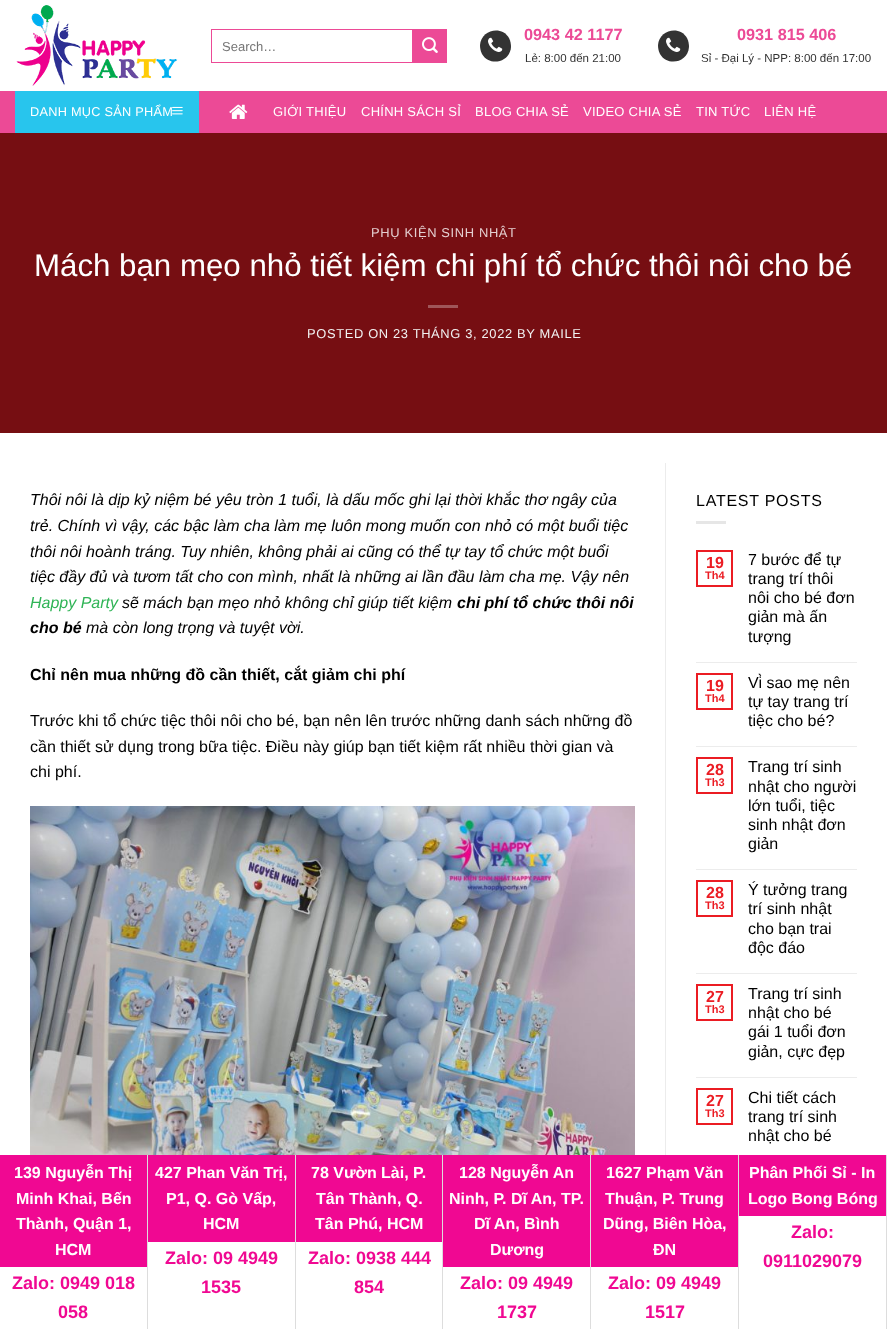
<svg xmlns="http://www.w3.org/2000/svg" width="887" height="1329">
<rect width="100%" height="100%" fill="#fff"/>
<image x="16" y="5" width="162" height="81" href="media/1.png"/>
<rect x="211.5" y="29.5" width="201" height="33" fill="none" stroke="#ec4a96"/>
<text x="222" y="51" style="font-family:Liberation Sans;font-size:13px;fill:#757575">Search…</text>
<rect x="413" y="29" width="34" height="34" fill="#ec4a96"/>
<image x="422" y="37" width="16" height="16" href="media/2.png"/>
<path d="M509 38c1.5 3 2 6 2 9c-1 15.5-21.5 20-29 7c-1.5-3-2-6-2-9c1-15 21.5-20 29-7z" fill="#333"/>
<image x="488" y="37" width="15" height="15" href="media/3.png"/>
<text x="524" y="40" style="font-family:Liberation Sans;font-size:16.25px;font-weight:bold;fill:#ec4a96">0943 42 1177</text>
<text x="525" y="62" style="font-family:Liberation Sans;font-size:11.5px;fill:#333">Lẻ: 8:00 đến 21:00</text>
<path d="M687 38c1.5 3 2 6 2 9c-1 15.5-21.5 20-29 7c-1.5-3-2-6-2-9c1-15 21.5-20 29-7z" fill="#333"/>
<image x="666" y="37" width="15" height="15" href="media/3.png"/>
<text x="737" y="40" style="font-family:Liberation Sans;font-size:16.25px;font-weight:bold;fill:#ec4a96">0931 815 406</text>
<text x="701" y="62" style="font-family:Liberation Sans;font-size:11.5px;fill:#333">Sỉ - Đại Lý - NPP: 8:00 đến 17:00</text>
<rect y="91" width="887" height="42" fill="#ec4a96"/>
<rect x="15" y="91" width="184" height="42" fill="#28c5ed"/>
<text x="30" y="116" style="font-family:Liberation Sans;font-size:12.75px;letter-spacing:0.25px;fill:#fff">DANH MỤC SẢN PHẨM</text>
<image x="172" y="106" width="11" height="9" href="media/4.png"/>
<image x="229" y="104" width="19" height="15" href="media/5.png"/>
<text x="273" y="116" style="font-family:Liberation Sans;font-size:13px;letter-spacing:0.25px;fill:#fff">GIỚI THIỆU</text>
<text x="361" y="116" style="font-family:Liberation Sans;font-size:13px;letter-spacing:0.25px;fill:#fff">CHÍNH SÁCH SỈ</text>
<text x="475" y="116" style="font-family:Liberation Sans;font-size:13px;letter-spacing:0.25px;fill:#fff">BLOG CHIA SẺ</text>
<text x="583" y="116" style="font-family:Liberation Sans;font-size:13px;letter-spacing:0.25px;fill:#fff">VIDEO CHIA SẺ</text>
<text x="696" y="116" style="font-family:Liberation Sans;font-size:13px;letter-spacing:0.25px;fill:#fff">TIN TỨC</text>
<text x="764" y="116" style="font-family:Liberation Sans;font-size:13px;letter-spacing:0.25px;fill:#fff">LIÊN HỆ</text>
<rect y="133" width="887" height="300" fill="#760e12"/>
<text x="371" y="237" style="font-family:Liberation Sans;font-size:12.9px;letter-spacing:0.65px;fill:#e4cfd0">PHỤ KIỆN SINH NHẬT</text>
<text x="34" y="276" style="font-family:Liberation Sans;font-size:31.25px;fill:#fff">Mách bạn mẹo nhỏ tiết kiệm chi phí tổ chức thôi nôi cho bé</text>
<rect x="428" y="305" width="30" height="3" fill="#9f5659"/>
<text x="307" y="338" style="font-family:Liberation Sans;font-size:12.9px;letter-spacing:0.65px;fill:#f1f1f1">POSTED ON 23 THÁNG 3, 2022 BY MAILE</text>
<text x="30" y="505" style="font-family:Liberation Sans;font-size:16px;font-style:italic;fill:#000">Thôi nôi là dịp kỷ niệm bé yêu tròn 1 tuổi, là dấu mốc ghi lại thời khắc thơ ngây của</text>
<text x="30" y="531" style="font-family:Liberation Sans;font-size:16px;font-style:italic;fill:#000">trẻ. Chính vì vậy, các bậc làm cha làm mẹ luôn mong muốn con nhỏ có một buổi tiệc</text>
<text x="30" y="557" style="font-family:Liberation Sans;font-size:16px;font-style:italic;fill:#000">thôi nôi hoành tráng. Tuy nhiên, không phải ai cũng có thể tự tay tổ chức một buổi</text>
<text x="30" y="582" style="font-family:Liberation Sans;font-size:16px;font-style:italic;fill:#000">tiệc đầy đủ và tươm tất cho con mình, nhất là những ai lần đầu làm cha mẹ. Vậy nên</text>
<text x="30" y="608" style="font-family:Liberation Sans;font-size:16px;font-style:italic;fill:#2fb456">Happy Party</text>
<text x="122" y="608" style="font-family:Liberation Sans;font-size:16px;font-style:italic;fill:#000">sẽ mách bạn mẹo nhỏ không chỉ giúp tiết kiệm</text>
<text x="457" y="608" style="font-family:Liberation Sans;font-size:16px;font-weight:bold;font-style:italic;fill:#000">chi phí tổ chức thôi nôi</text>
<text x="30" y="633" style="font-family:Liberation Sans;font-size:16px;font-weight:bold;font-style:italic;fill:#000">cho bé</text>
<text x="86" y="633" style="font-family:Liberation Sans;font-size:16px;font-style:italic;fill:#000">mà còn long trọng và tuyệt vời.</text>
<text x="30" y="680" style="font-family:Liberation Sans;font-size:16px;font-weight:bold;fill:#000">Chỉ nên mua những đồ cần thiết, cắt giảm chi phí</text>
<text x="30" y="726" style="font-family:Liberation Sans;font-size:16px;fill:#000">Trước khi tổ chức tiệc thôi nôi cho bé, bạn nên lên trước những danh sách những đồ</text>
<text x="30" y="752" style="font-family:Liberation Sans;font-size:16px;fill:#000">cần thiết sử dụng trong bữa tiệc. Điều này giúp bạn tiết kiệm rất nhiều thời gian và</text>
<text x="30" y="777" style="font-family:Liberation Sans;font-size:16px;fill:#000">chi phí.</text>
<image x="30" y="806" width="605" height="349" href="media/6.png"/>
<rect x="665" y="463" width="1" height="692" fill="#ececec"/>
<text x="696" y="506" style="font-family:Liberation Sans;font-size:16px;letter-spacing:0.75px;fill:#000">LATEST POSTS</text>
<rect x="696" y="521" width="30" height="3" fill="#e6e6e6"/>
<rect x="697" y="551" width="35" height="35" fill="none" stroke="#eb1c23" stroke-width="2"/>
<text x="706" y="568" style="font-family:Liberation Sans;font-size:16px;font-weight:bold;fill:#eb1c23">19</text>
<text x="705" y="579" style="font-family:Liberation Sans;font-size:11px;font-weight:bold;fill:#eb1c23">Th4</text>
<text x="748" y="565" style="font-family:Liberation Sans;font-size:16px;fill:#000">7 bước để tự</text>
<text x="748" y="584" style="font-family:Liberation Sans;font-size:16px;fill:#000">trang trí thôi</text>
<text x="748" y="603" style="font-family:Liberation Sans;font-size:16px;fill:#000">nôi cho bé đơn</text>
<text x="748" y="622" style="font-family:Liberation Sans;font-size:16px;fill:#000">giản mà ấn</text>
<text x="748" y="642" style="font-family:Liberation Sans;font-size:16px;fill:#000">tượng</text>
<rect x="696" y="662" width="161" height="1" fill="#ececec"/>
<rect x="697" y="674" width="35" height="35" fill="none" stroke="#eb1c23" stroke-width="2"/>
<text x="706" y="691" style="font-family:Liberation Sans;font-size:16px;font-weight:bold;fill:#eb1c23">19</text>
<text x="705" y="702" style="font-family:Liberation Sans;font-size:11px;font-weight:bold;fill:#eb1c23">Th4</text>
<text x="748" y="688" style="font-family:Liberation Sans;font-size:16px;fill:#000">Vì sao mẹ nên</text>
<text x="748" y="707" style="font-family:Liberation Sans;font-size:16px;fill:#000">tự tay trang trí</text>
<text x="748" y="726" style="font-family:Liberation Sans;font-size:16px;fill:#000">tiệc cho bé?</text>
<rect x="696" y="746" width="161" height="1" fill="#ececec"/>
<rect x="697" y="758" width="35" height="35" fill="none" stroke="#eb1c23" stroke-width="2"/>
<text x="706" y="775" style="font-family:Liberation Sans;font-size:16px;font-weight:bold;fill:#eb1c23">28</text>
<text x="705" y="786" style="font-family:Liberation Sans;font-size:11px;font-weight:bold;fill:#eb1c23">Th3</text>
<text x="748" y="772" style="font-family:Liberation Sans;font-size:16px;fill:#000">Trang trí sinh</text>
<text x="748" y="792" style="font-family:Liberation Sans;font-size:16px;fill:#000">nhật cho người</text>
<text x="748" y="811" style="font-family:Liberation Sans;font-size:16px;fill:#000">lớn tuổi, tiệc</text>
<text x="748" y="830" style="font-family:Liberation Sans;font-size:16px;fill:#000">sinh nhật đơn</text>
<text x="748" y="849" style="font-family:Liberation Sans;font-size:16px;fill:#000">giản</text>
<rect x="696" y="869" width="161" height="1" fill="#ececec"/>
<rect x="697" y="881" width="35" height="35" fill="none" stroke="#eb1c23" stroke-width="2"/>
<text x="706" y="898" style="font-family:Liberation Sans;font-size:16px;font-weight:bold;fill:#eb1c23">28</text>
<text x="705" y="909" style="font-family:Liberation Sans;font-size:11px;font-weight:bold;fill:#eb1c23">Th3</text>
<text x="748" y="895" style="font-family:Liberation Sans;font-size:16px;fill:#000">Ý tưởng trang</text>
<text x="748" y="914" style="font-family:Liberation Sans;font-size:16px;fill:#000">trí sinh nhật</text>
<text x="748" y="934" style="font-family:Liberation Sans;font-size:16px;fill:#000">cho bạn trai</text>
<text x="748" y="953" style="font-family:Liberation Sans;font-size:16px;fill:#000">độc đáo</text>
<rect x="696" y="973" width="161" height="1" fill="#ececec"/>
<rect x="697" y="985" width="35" height="35" fill="none" stroke="#eb1c23" stroke-width="2"/>
<text x="706" y="1002" style="font-family:Liberation Sans;font-size:16px;font-weight:bold;fill:#eb1c23">27</text>
<text x="705" y="1013" style="font-family:Liberation Sans;font-size:11px;font-weight:bold;fill:#eb1c23">Th3</text>
<text x="748" y="999" style="font-family:Liberation Sans;font-size:16px;fill:#000">Trang trí sinh</text>
<text x="748" y="1018" style="font-family:Liberation Sans;font-size:16px;fill:#000">nhật cho bé</text>
<text x="748" y="1037" style="font-family:Liberation Sans;font-size:16px;fill:#000">gái 1 tuổi đơn</text>
<text x="748" y="1057" style="font-family:Liberation Sans;font-size:16px;fill:#000">giản, cực đẹp</text>
<rect x="696" y="1077" width="161" height="1" fill="#ececec"/>
<rect x="697" y="1089" width="35" height="35" fill="none" stroke="#eb1c23" stroke-width="2"/>
<text x="706" y="1106" style="font-family:Liberation Sans;font-size:16px;font-weight:bold;fill:#eb1c23">27</text>
<text x="705" y="1117" style="font-family:Liberation Sans;font-size:11px;font-weight:bold;fill:#eb1c23">Th3</text>
<text x="748" y="1103" style="font-family:Liberation Sans;font-size:16px;fill:#000">Chi tiết cách</text>
<text x="748" y="1122" style="font-family:Liberation Sans;font-size:16px;fill:#000">trang trí sinh</text>
<text x="748" y="1141" style="font-family:Liberation Sans;font-size:16px;fill:#000">nhật cho bé</text>
<rect x="147" y="1155" width="1" height="174" fill="#ddd"/>
<rect y="1155" width="147" height="112" fill="#f00892"/>
<text x="14" y="1178" style="font-family:Liberation Sans;font-size:16px;font-weight:bold;fill:#fff">139 Nguyễn Thị</text>
<text x="16" y="1204" style="font-family:Liberation Sans;font-size:16px;font-weight:bold;fill:#fff">Minh Khai, Bến</text>
<text x="16" y="1229" style="font-family:Liberation Sans;font-size:16px;font-weight:bold;fill:#fff">Thành, Quận 1,</text>
<text x="55" y="1255" style="font-family:Liberation Sans;font-size:16px;font-weight:bold;fill:#fff">HCM</text>
<text x="12" y="1289" style="font-family:Liberation Sans;font-size:18px;font-weight:bold;fill:#f00892">Zalo: 0949 018</text>
<text x="58" y="1318" style="font-family:Liberation Sans;font-size:18px;font-weight:bold;fill:#f00892">058</text>
<rect x="295" y="1155" width="1" height="174" fill="#ddd"/>
<rect x="148" y="1155" width="147" height="87" fill="#f00892"/>
<text x="155" y="1178" style="font-family:Liberation Sans;font-size:16px;font-weight:bold;fill:#fff">427 Phan Văn Trị,</text>
<text x="166" y="1204" style="font-family:Liberation Sans;font-size:16px;font-weight:bold;fill:#fff">P1, Q. Gò Vấp,</text>
<text x="203" y="1229" style="font-family:Liberation Sans;font-size:16px;font-weight:bold;fill:#fff">HCM</text>
<text x="165" y="1264" style="font-family:Liberation Sans;font-size:18px;font-weight:bold;fill:#f00892">Zalo: 09 4949</text>
<text x="201" y="1293" style="font-family:Liberation Sans;font-size:18px;font-weight:bold;fill:#f00892">1535</text>
<rect x="442" y="1155" width="1" height="174" fill="#ddd"/>
<rect x="296" y="1155" width="146" height="87" fill="#f00892"/>
<text x="311" y="1178" style="font-family:Liberation Sans;font-size:16px;font-weight:bold;fill:#fff">78 Vườn Lài, P.</text>
<text x="316" y="1204" style="font-family:Liberation Sans;font-size:16px;font-weight:bold;fill:#fff">Tân Thành, Q.</text>
<text x="315" y="1229" style="font-family:Liberation Sans;font-size:16px;font-weight:bold;fill:#fff">Tân Phú, HCM</text>
<text x="308" y="1264" style="font-family:Liberation Sans;font-size:18px;font-weight:bold;fill:#f00892">Zalo: 0938 444</text>
<text x="354" y="1293" style="font-family:Liberation Sans;font-size:18px;font-weight:bold;fill:#f00892">854</text>
<rect x="590" y="1155" width="1" height="174" fill="#ddd"/>
<rect x="443" y="1155" width="147" height="112" fill="#f00892"/>
<text x="459" y="1178" style="font-family:Liberation Sans;font-size:16px;font-weight:bold;fill:#fff">128 Nguyễn An</text>
<text x="449" y="1204" style="font-family:Liberation Sans;font-size:16px;font-weight:bold;fill:#fff">Ninh, P. Dĩ An, TP.</text>
<text x="474" y="1229" style="font-family:Liberation Sans;font-size:16px;font-weight:bold;fill:#fff">Dĩ An, Bình</text>
<text x="490" y="1255" style="font-family:Liberation Sans;font-size:16px;font-weight:bold;fill:#fff">Dương</text>
<text x="460" y="1289" style="font-family:Liberation Sans;font-size:18px;font-weight:bold;fill:#f00892">Zalo: 09 4949</text>
<text x="497" y="1318" style="font-family:Liberation Sans;font-size:18px;font-weight:bold;fill:#f00892">1737</text>
<rect x="738" y="1155" width="1" height="174" fill="#ddd"/>
<rect x="591" y="1155" width="147" height="112" fill="#f00892"/>
<text x="606" y="1178" style="font-family:Liberation Sans;font-size:16px;font-weight:bold;fill:#fff">1627 Phạm Văn</text>
<text x="605" y="1204" style="font-family:Liberation Sans;font-size:16px;font-weight:bold;fill:#fff">Thuận, P. Trung</text>
<text x="603" y="1229" style="font-family:Liberation Sans;font-size:16px;font-weight:bold;fill:#fff">Dũng, Biên Hòa,</text>
<text x="653" y="1255" style="font-family:Liberation Sans;font-size:16px;font-weight:bold;fill:#fff">ĐN</text>
<text x="608" y="1289" style="font-family:Liberation Sans;font-size:18px;font-weight:bold;fill:#f00892">Zalo: 09 4949</text>
<text x="645" y="1318" style="font-family:Liberation Sans;font-size:18px;font-weight:bold;fill:#f00892">1517</text>
<rect x="886" y="1155" width="1" height="174" fill="#ddd"/>
<rect x="739" y="1155" width="147" height="61" fill="#f00892"/>
<text x="749" y="1178" style="font-family:Liberation Sans;font-size:16px;font-weight:bold;fill:#fff">Phân Phối Sỉ - In</text>
<text x="748" y="1204" style="font-family:Liberation Sans;font-size:16px;font-weight:bold;fill:#fff">Logo Bong Bóng</text>
<text x="791" y="1238" style="font-family:Liberation Sans;font-size:18px;font-weight:bold;fill:#f00892">Zalo:</text>
<text x="763" y="1267" style="font-family:Liberation Sans;font-size:18px;font-weight:bold;fill:#f00892">0911029079</text>
</svg>
